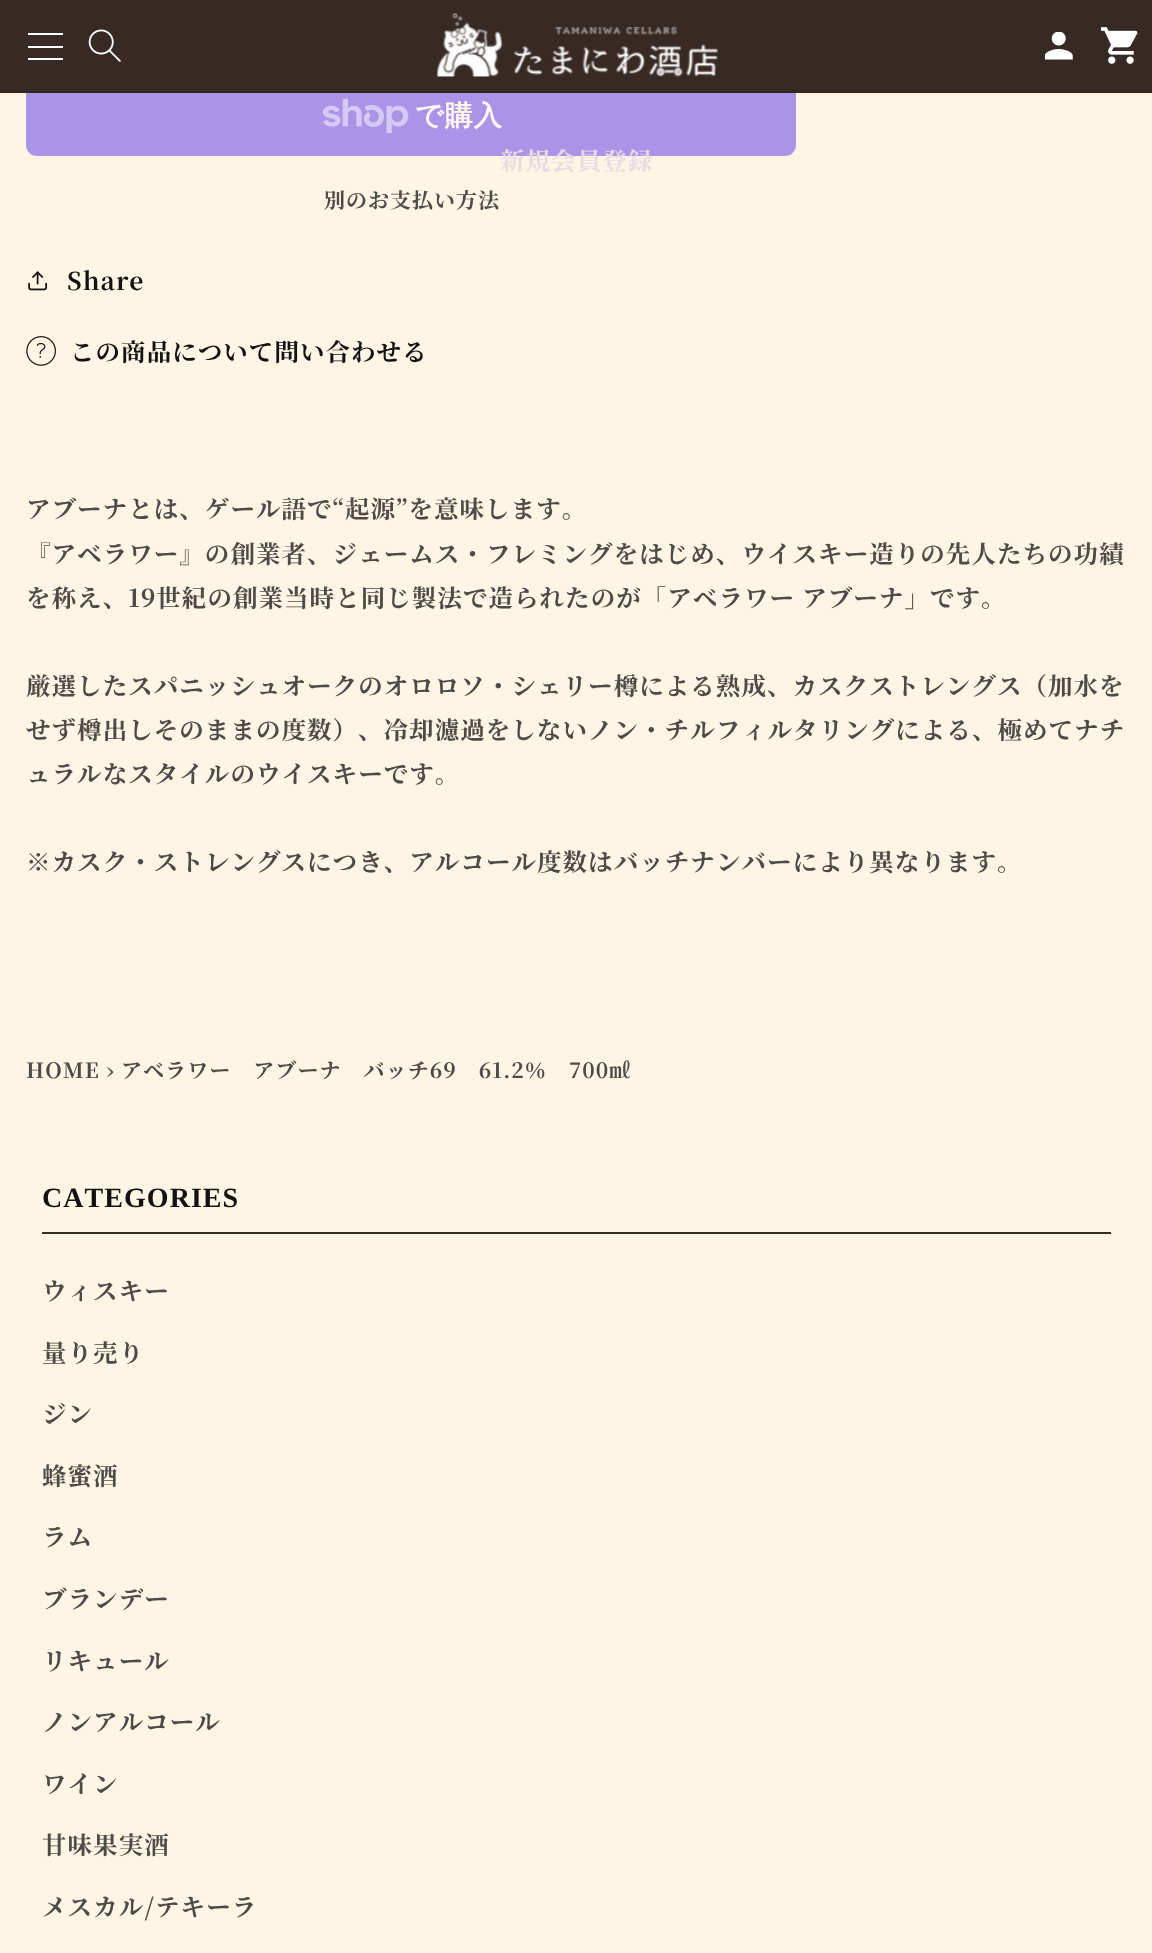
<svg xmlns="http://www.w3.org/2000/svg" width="1152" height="1953">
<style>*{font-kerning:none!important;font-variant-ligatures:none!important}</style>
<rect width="100%" height="100%" fill="#fff5e4"/>
<rect x="26" y="75" width="770" height="81" rx="11" fill="#aa94e8"/>
<image x="323" y="98" width="86" height="35" href="media/1.png"/>
<text x="415" y="125" style="font-family:WenQuanYi Zen Hei;font-size:28px;font-weight:bold;letter-spacing:1.05px;fill:#fffaf2">で購入</text>
<text x="324" y="208" style="font-family:Noto Serif JP;font-size:21px;font-weight:bold;letter-spacing:1px;fill:#4d4b47">別のお支払い方法</text>
<image x="28" y="271" width="20" height="20" href="media/2.png"/>
<text x="67" y="290" style="font-family:Noto Serif JP;font-size:24.5px;font-weight:bold;letter-spacing:1.05px;fill:#121212">Share</text>
<image x="26" y="336" width="30" height="30" href="media/3.png"/>
<text x="70" y="361" style="font-family:Noto Serif JP;font-size:24.5px;font-weight:bold;letter-spacing:1.05px;fill:#121212">この商品について問い合わせる</text>
<text x="26" y="518" style="font-family:Noto Serif JP;font-size:24.5px;font-weight:bold;letter-spacing:1.05px;fill:#4d4b47">アブーナとは、ゲール語で“起源”を意味します。</text>
<text x="26" y="563" style="font-family:Noto Serif JP;font-size:24.5px;font-weight:bold;letter-spacing:1.05px;fill:#4d4b47">『アベラワー』の創業者、ジェームス・フレミングをはじめ、ウ</text>
<text x="767" y="563" style="font-family:Noto Serif JP;font-size:24.5px;font-weight:bold;letter-spacing:1.05px;fill:#4d4b47">イスキー造りの先人たちの功績</text>
<text x="26" y="607" style="font-family:Noto Serif JP;font-size:24.5px;font-weight:bold;letter-spacing:1.05px;fill:#4d4b47">を称え、19世紀の創業当時と同じ製法で造られたのが「アベラワー アブーナ」です。</text>
<text x="26" y="695" style="font-family:Noto Serif JP;font-size:24.5px;font-weight:bold;letter-spacing:1.05px;fill:#4d4b47">厳選したスパニッシュオークのオロロソ・シェリー樽による熟成、カスクストレングス（加水を</text>
<text x="26" y="739" style="font-family:Noto Serif JP;font-size:24.5px;font-weight:bold;letter-spacing:1.05px;fill:#4d4b47">せず樽出しそのままの度数）</text>
<text x="358" y="739" style="font-family:Noto Serif JP;font-size:24.5px;font-weight:bold;letter-spacing:1.05px;fill:#4d4b47">、冷却濾過をしないノン・チルフ</text>
<text x="742" y="739" style="font-family:Noto Serif JP;font-size:24.5px;font-weight:bold;letter-spacing:1.05px;fill:#4d4b47">ィルタリングによる、極めてナチ</text>
<text x="26" y="783" style="font-family:Noto Serif JP;font-size:24.5px;font-weight:bold;letter-spacing:1.05px;fill:#4d4b47">ュラルなスタイルのウイスキーです。</text>
<text x="26" y="871" style="font-family:Noto Serif JP;font-size:24.5px;font-weight:bold;letter-spacing:1.05px;fill:#4d4b47">※カスク・ストレングスにつき、アルコール度数はバッチナ</text>
<text x="716" y="871" style="font-family:Noto Serif JP;font-size:24.5px;font-weight:bold;letter-spacing:1.05px;fill:#4d4b47">ンバーにより異なります。</text>
<text x="26" y="1078" style="font-family:Noto Serif JP;font-size:21px;font-weight:bold;letter-spacing:1.05px;fill:#4d4b47">HOME › アベラワー　アブーナ　バッチ69　61.2％　700㎖</text>
<rect width="1152" height="91" fill="#372923"/>
<rect y="91" width="1152" height="2" fill="#342722"/>
<rect x="28" y="33" width="35" height="2" fill="#fff"/>
<rect x="28" y="46" width="35" height="2" fill="#fff"/>
<rect x="28" y="58" width="35" height="2" fill="#fff"/>
<image x="88" y="29" width="33" height="33" href="media/4.png"/>
<image x="436" y="13" width="282" height="64" href="media/5.png"/>
<image x="1101" y="27" width="37" height="37" href="media/6.png"/>
<image x="1045" y="32" width="28" height="28" href="media/7.png"/>
<text x="500" y="170" style="font-family:Noto Serif JP;font-size:24.5px;font-weight:bold;letter-spacing:1.05px;fill:#e8dbe5">新規会員登録</text>
<rect x="42" y="1232" width="1069" height="2" fill="#372923"/>
<text x="42" y="1207" style="font-family:Liberation Serif;font-size:28px;font-weight:bold;letter-spacing:1.05px;fill:#121212">CATEGORIES</text>
<text x="42" y="1300" style="font-family:Noto Serif JP;font-size:24.5px;font-weight:bold;letter-spacing:1.05px;fill:#4d4b47">ウィスキー</text>
<text x="42" y="1362" style="font-family:Noto Serif JP;font-size:24.5px;font-weight:bold;letter-spacing:1.05px;fill:#4d4b47">量り売り</text>
<text x="42" y="1423" style="font-family:Noto Serif JP;font-size:24.5px;font-weight:bold;letter-spacing:1.05px;fill:#4d4b47">ジン</text>
<text x="42" y="1485" style="font-family:Noto Serif JP;font-size:24.5px;font-weight:bold;letter-spacing:1.05px;fill:#4d4b47">蜂蜜酒</text>
<text x="42" y="1546" style="font-family:Noto Serif JP;font-size:24.5px;font-weight:bold;letter-spacing:1.05px;fill:#4d4b47">ラム</text>
<text x="42" y="1608" style="font-family:Noto Serif JP;font-size:24.5px;font-weight:bold;letter-spacing:1.05px;fill:#4d4b47">ブランデー</text>
<text x="42" y="1670" style="font-family:Noto Serif JP;font-size:24.5px;font-weight:bold;letter-spacing:1.05px;fill:#4d4b47">リキュール</text>
<text x="42" y="1731" style="font-family:Noto Serif JP;font-size:24.5px;font-weight:bold;letter-spacing:1.05px;fill:#4d4b47">ノンアルコール</text>
<text x="42" y="1793" style="font-family:Noto Serif JP;font-size:24.5px;font-weight:bold;letter-spacing:1.05px;fill:#4d4b47">ワイン</text>
<text x="42" y="1854" style="font-family:Noto Serif JP;font-size:24.5px;font-weight:bold;letter-spacing:1.05px;fill:#4d4b47">甘味果実酒</text>
<text x="42" y="1916" style="font-family:Noto Serif JP;font-size:24.5px;font-weight:bold;letter-spacing:1.05px;fill:#4d4b47">メスカル/テキーラ</text>
</svg>
